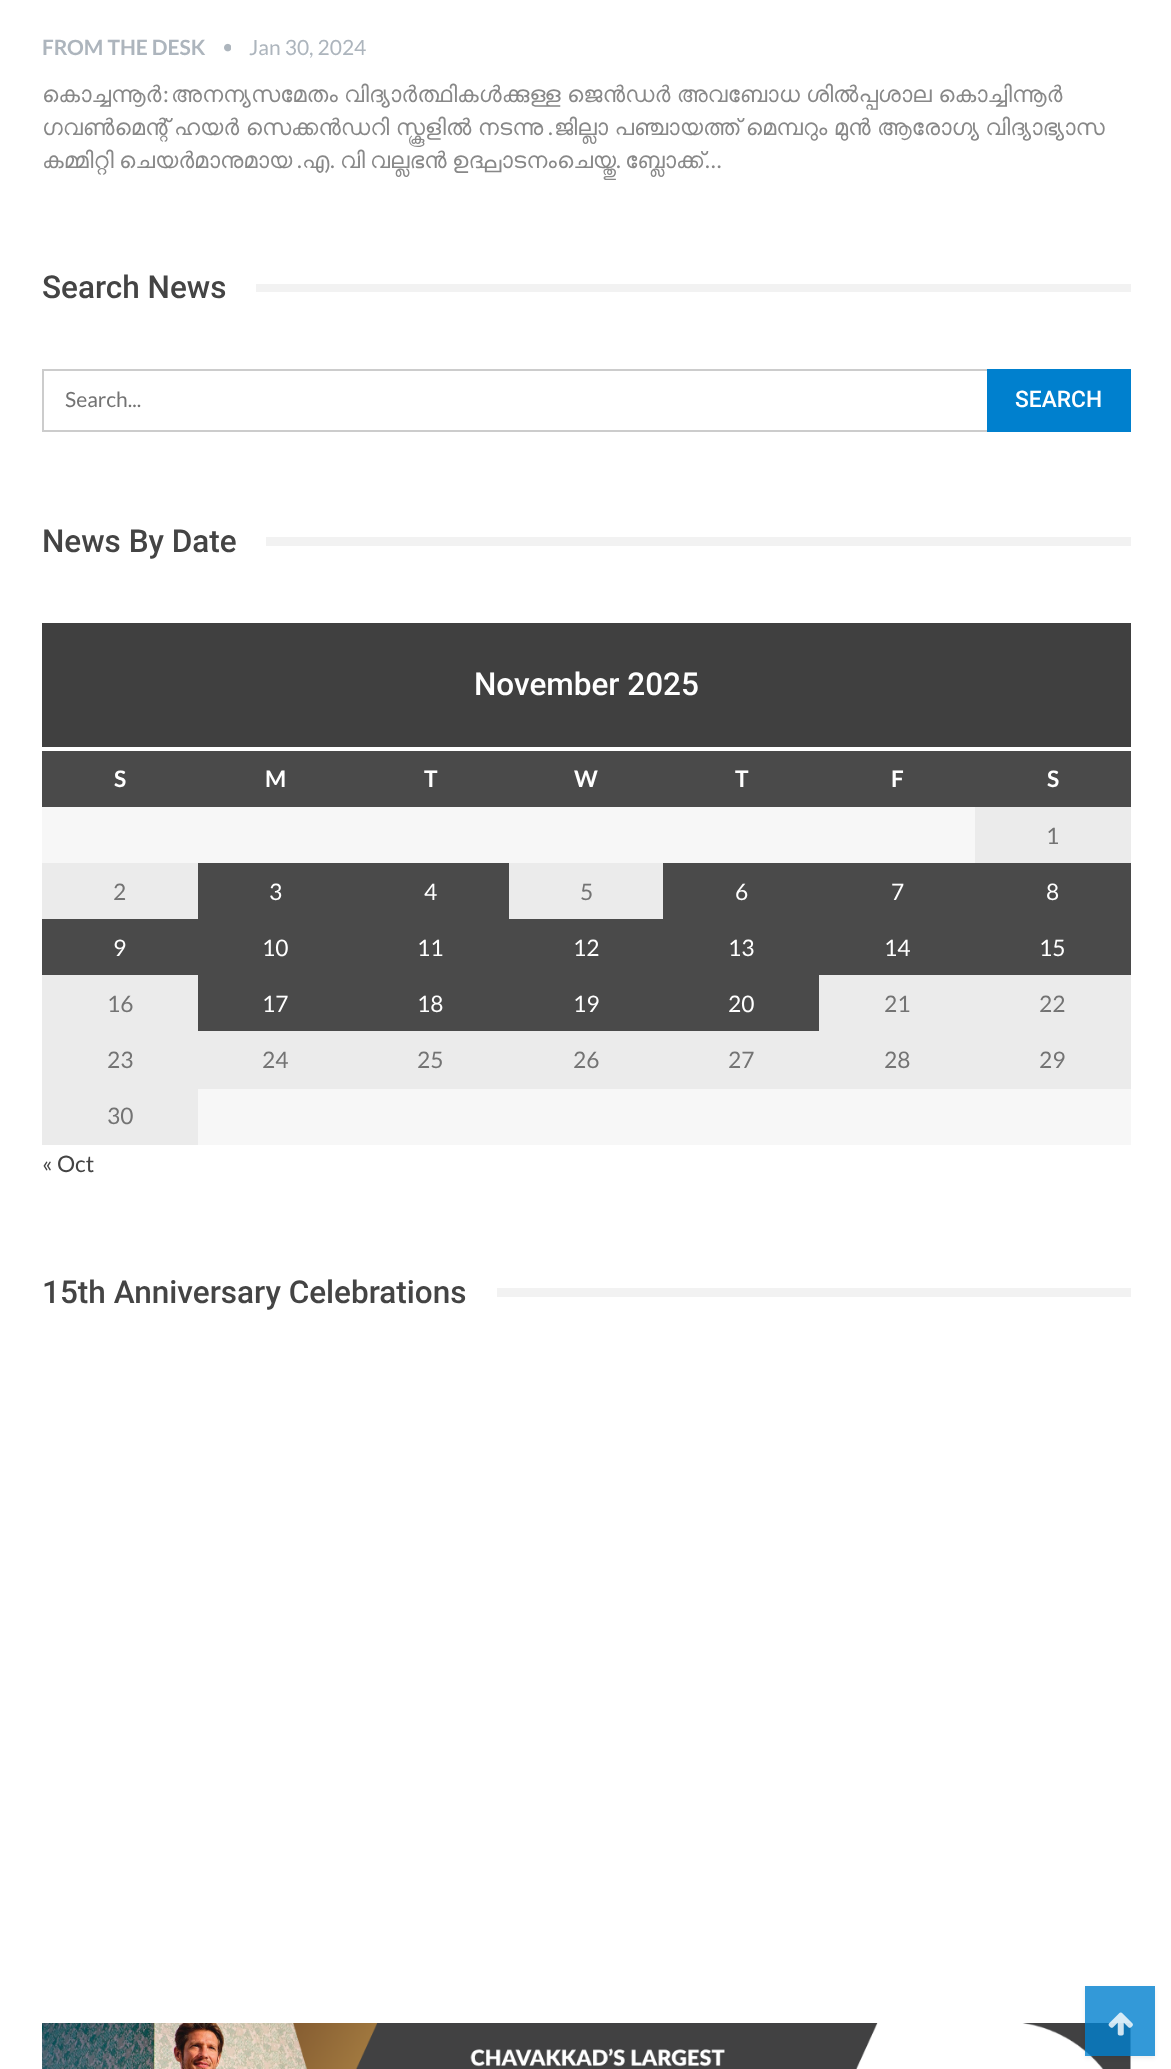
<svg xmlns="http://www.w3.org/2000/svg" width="1171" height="2069">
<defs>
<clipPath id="clip1"><path d="M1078 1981h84v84h-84zm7 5h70v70h-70z" clip-rule="evenodd"/></clipPath>
</defs>
<rect width="100%" height="100%" fill="#fff"/>
<text x="42" y="55" style="font-family:Lato;font-size:21px;font-weight:bold;fill:#adb5bd">FROM THE DESK</text>
<image x="224" y="43" width="7" height="9" href="media/1.png"/>
<text x="249" y="55" style="font-family:Lato;font-size:21px;fill:#adb5bd">Jan 30, 2024</text>
<text x="42" y="102" style="font-family:FreeSans;font-size:22.75px;fill:#888">കൊച്ചന്നൂർ</text>
<text x="163" y="102" style="font-family:Lato;font-size:22.75px;fill:#888">:</text>
<text x="171" y="102" word-spacing="-2.75" style="font-family:FreeSans;font-size:22.75px;fill:#888">അനന്യസമേതം വിദ്യാർത്ഥികൾക്കുള്ള ജെൻഡർ അവബോധ ശിൽപ്പശാല കൊച്ചിന്നൂർ</text>
<text x="42" y="135" word-spacing="-2.75" style="font-family:FreeSans;font-size:22.75px;fill:#888">ഗവൺമെന്റ് ഹയർ സെക്കൻഡറി സ്കൂളിൽ നടന്നു</text>
<text x="548" y="135" style="font-family:Lato;font-size:22.75px;fill:#888">.</text>
<text x="554" y="135" word-spacing="-2.75" style="font-family:FreeSans;font-size:22.75px;fill:#888">ജില്ലാ പഞ്ചായത്ത് മെമ്പറും മുൻ ആരോഗ്യ വിദ്യാഭ്യാസ</text>
<text x="42" y="168" style="font-family:FreeSans;font-size:22.75px;fill:#888">കമ്മിറ്റി</text>
<text x="119" y="168" style="font-family:FreeSans;font-size:22.75px;fill:#888">ചെയർമാനുമായ</text>
<text x="297" y="168" style="font-family:Lato;font-size:22.75px;fill:#888">.</text>
<text x="302" y="168" style="font-family:FreeSans;font-size:22.75px;fill:#888">എ</text>
<text x="330" y="168" style="font-family:Lato;font-size:22.75px;fill:#888">.</text>
<text x="340" y="168" style="font-family:FreeSans;font-size:22.75px;fill:#888">വി</text>
<text x="370" y="168" style="font-family:FreeSans;font-size:22.75px;fill:#888">വല്ലഭൻ</text>
<text x="452" y="168" style="font-family:FreeSans;font-size:22.75px;fill:#888">ഉദ്ഘാടനംചെയ്തു</text>
<text x="616" y="168" style="font-family:Lato;font-size:22.75px;fill:#888">.</text>
<text x="625" y="168" style="font-family:FreeSans;font-size:22.75px;fill:#888">ബ്ലോക്ക്</text>
<text x="705" y="168" style="font-family:Lato;font-size:22.75px;fill:#888">…</text>
<text x="42" y="298" style="font-family:Roboto;font-size:31.5px;font-weight:500;fill:#444">Search News</text>
<rect x="256" y="284" width="875" height="8" fill="#f2f2f2"/>
<rect x="43" y="370" width="1087" height="61" fill="none" stroke="#ccc" stroke-width="2"/>
<text x="65" y="407" style="font-family:Lato;font-size:21px;fill:#737373">Search...</text>
<rect x="987" y="369" width="144" height="63" fill="#0080ce"/>
<text x="1015" y="407" style="font-family:Roboto;font-size:22.75px;font-weight:500;fill:#fff">SEARCH</text>
<text x="42" y="552" style="font-family:Roboto;font-size:31.5px;font-weight:500;fill:#444">News By Date</text>
<rect x="266" y="537" width="865" height="9" fill="#f2f2f2"/>
<rect x="42" y="623" width="1089" height="124" fill="#404040"/>
<text x="474" y="695" style="font-family:Roboto;font-size:31.5px;font-weight:500;fill:#fff">November 2025</text>
<rect x="42" y="751" width="1089" height="56" fill="#4a4a4a"/>
<text x="114" y="787" style="font-family:Lato;font-size:22.75px;font-weight:bold;fill:#fff">S</text>
<text x="265" y="787" style="font-family:Lato;font-size:22.75px;font-weight:bold;fill:#fff">M</text>
<text x="424" y="787" style="font-family:Lato;font-size:22.75px;font-weight:bold;fill:#fff">T</text>
<text x="574" y="787" style="font-family:Lato;font-size:22.75px;font-weight:bold;fill:#fff">W</text>
<text x="735" y="787" style="font-family:Lato;font-size:22.75px;font-weight:bold;fill:#fff">T</text>
<text x="891" y="787" style="font-family:Lato;font-size:22.75px;font-weight:bold;fill:#fff">F</text>
<text x="1047" y="787" style="font-family:Lato;font-size:22.75px;font-weight:bold;fill:#fff">S</text>
<rect x="42" y="807" width="933" height="56" fill="#f7f7f7"/>
<rect x="975" y="807" width="156" height="56" fill="#ebebeb"/>
<text x="1046" y="844" style="font-family:Lato;font-size:22.75px;fill:#737373">1</text>
<rect x="42" y="863" width="156" height="56" fill="#ebebeb"/>
<text x="113" y="900" style="font-family:Lato;font-size:22.75px;fill:#737373">2</text>
<rect x="198" y="863" width="311" height="56" fill="#4a4a4a"/>
<text x="269" y="900" style="font-family:Lato;font-size:22.75px;fill:#fff">3</text>
<text x="424" y="900" style="font-family:Lato;font-size:22.75px;fill:#fff">4</text>
<rect x="509" y="863" width="154" height="56" fill="#ebebeb"/>
<text x="580" y="900" style="font-family:Lato;font-size:22.75px;fill:#737373">5</text>
<rect x="663" y="863" width="468" height="56" fill="#4a4a4a"/>
<text x="735" y="900" style="font-family:Lato;font-size:22.75px;fill:#fff">6</text>
<text x="891" y="900" style="font-family:Lato;font-size:22.75px;fill:#fff">7</text>
<text x="1046" y="900" style="font-family:Lato;font-size:22.75px;fill:#fff">8</text>
<rect x="42" y="919" width="1089" height="56" fill="#4a4a4a"/>
<text x="113" y="956" style="font-family:Lato;font-size:22.75px;fill:#fff">9</text>
<text x="262" y="956" style="font-family:Lato;font-size:22.75px;fill:#fff">10</text>
<text x="417" y="956" style="font-family:Lato;font-size:22.75px;fill:#fff">11</text>
<text x="573" y="956" style="font-family:Lato;font-size:22.75px;fill:#fff">12</text>
<text x="728" y="956" style="font-family:Lato;font-size:22.75px;fill:#fff">13</text>
<text x="884" y="956" style="font-family:Lato;font-size:22.75px;fill:#fff">14</text>
<text x="1039" y="956" style="font-family:Lato;font-size:22.75px;fill:#fff">15</text>
<rect x="42" y="975" width="156" height="170" fill="#ebebeb"/>
<text x="107" y="1012" style="font-family:Lato;font-size:22.75px;fill:#737373">16</text>
<rect x="198" y="975" width="621" height="56" fill="#4a4a4a"/>
<text x="262" y="1012" style="font-family:Lato;font-size:22.75px;fill:#fff">17</text>
<text x="417" y="1012" style="font-family:Lato;font-size:22.75px;fill:#fff">18</text>
<text x="573" y="1012" style="font-family:Lato;font-size:22.75px;fill:#fff">19</text>
<text x="728" y="1012" style="font-family:Lato;font-size:22.75px;fill:#fff">20</text>
<rect x="819" y="975" width="312" height="56" fill="#ebebeb"/>
<text x="884" y="1012" style="font-family:Lato;font-size:22.75px;fill:#737373">21</text>
<text x="1039" y="1012" style="font-family:Lato;font-size:22.75px;fill:#737373">22</text>
<text x="107" y="1068" style="font-family:Lato;font-size:22.75px;fill:#737373">23</text>
<rect x="198" y="1031" width="933" height="58" fill="#ebebeb"/>
<text x="262" y="1068" style="font-family:Lato;font-size:22.75px;fill:#737373">24</text>
<text x="417" y="1068" style="font-family:Lato;font-size:22.75px;fill:#737373">25</text>
<text x="573" y="1068" style="font-family:Lato;font-size:22.75px;fill:#737373">26</text>
<text x="728" y="1068" style="font-family:Lato;font-size:22.75px;fill:#737373">27</text>
<text x="884" y="1068" style="font-family:Lato;font-size:22.75px;fill:#737373">28</text>
<text x="1039" y="1068" style="font-family:Lato;font-size:22.75px;fill:#737373">29</text>
<text x="107" y="1124" style="font-family:Lato;font-size:22.75px;fill:#737373">30</text>
<rect x="198" y="1089" width="933" height="56" fill="#f7f7f7"/>
<text x="42" y="1172" style="font-family:Lato;font-size:22.75px;fill:#444">« Oct</text>
<text x="42" y="1303" style="font-family:Roboto;font-size:31.5px;font-weight:500;fill:#444">15th Anniversary Celebrations</text>
<rect x="497" y="1288" width="634" height="9" fill="#f2f2f2"/>
<image x="42" y="2023" width="1089" height="46" href="media/2.png"/>
<g clip-path="url(#clip1)">
<rect x="1085" y="1988" width="70" height="70" fill="#00000012" filter="blur(2px)"/>
</g>
<rect x="1085" y="1986" width="70" height="70" fill="#0080cecc"/>
<image x="1108" y="2012" width="25" height="24" href="media/3.png"/>
</svg>
